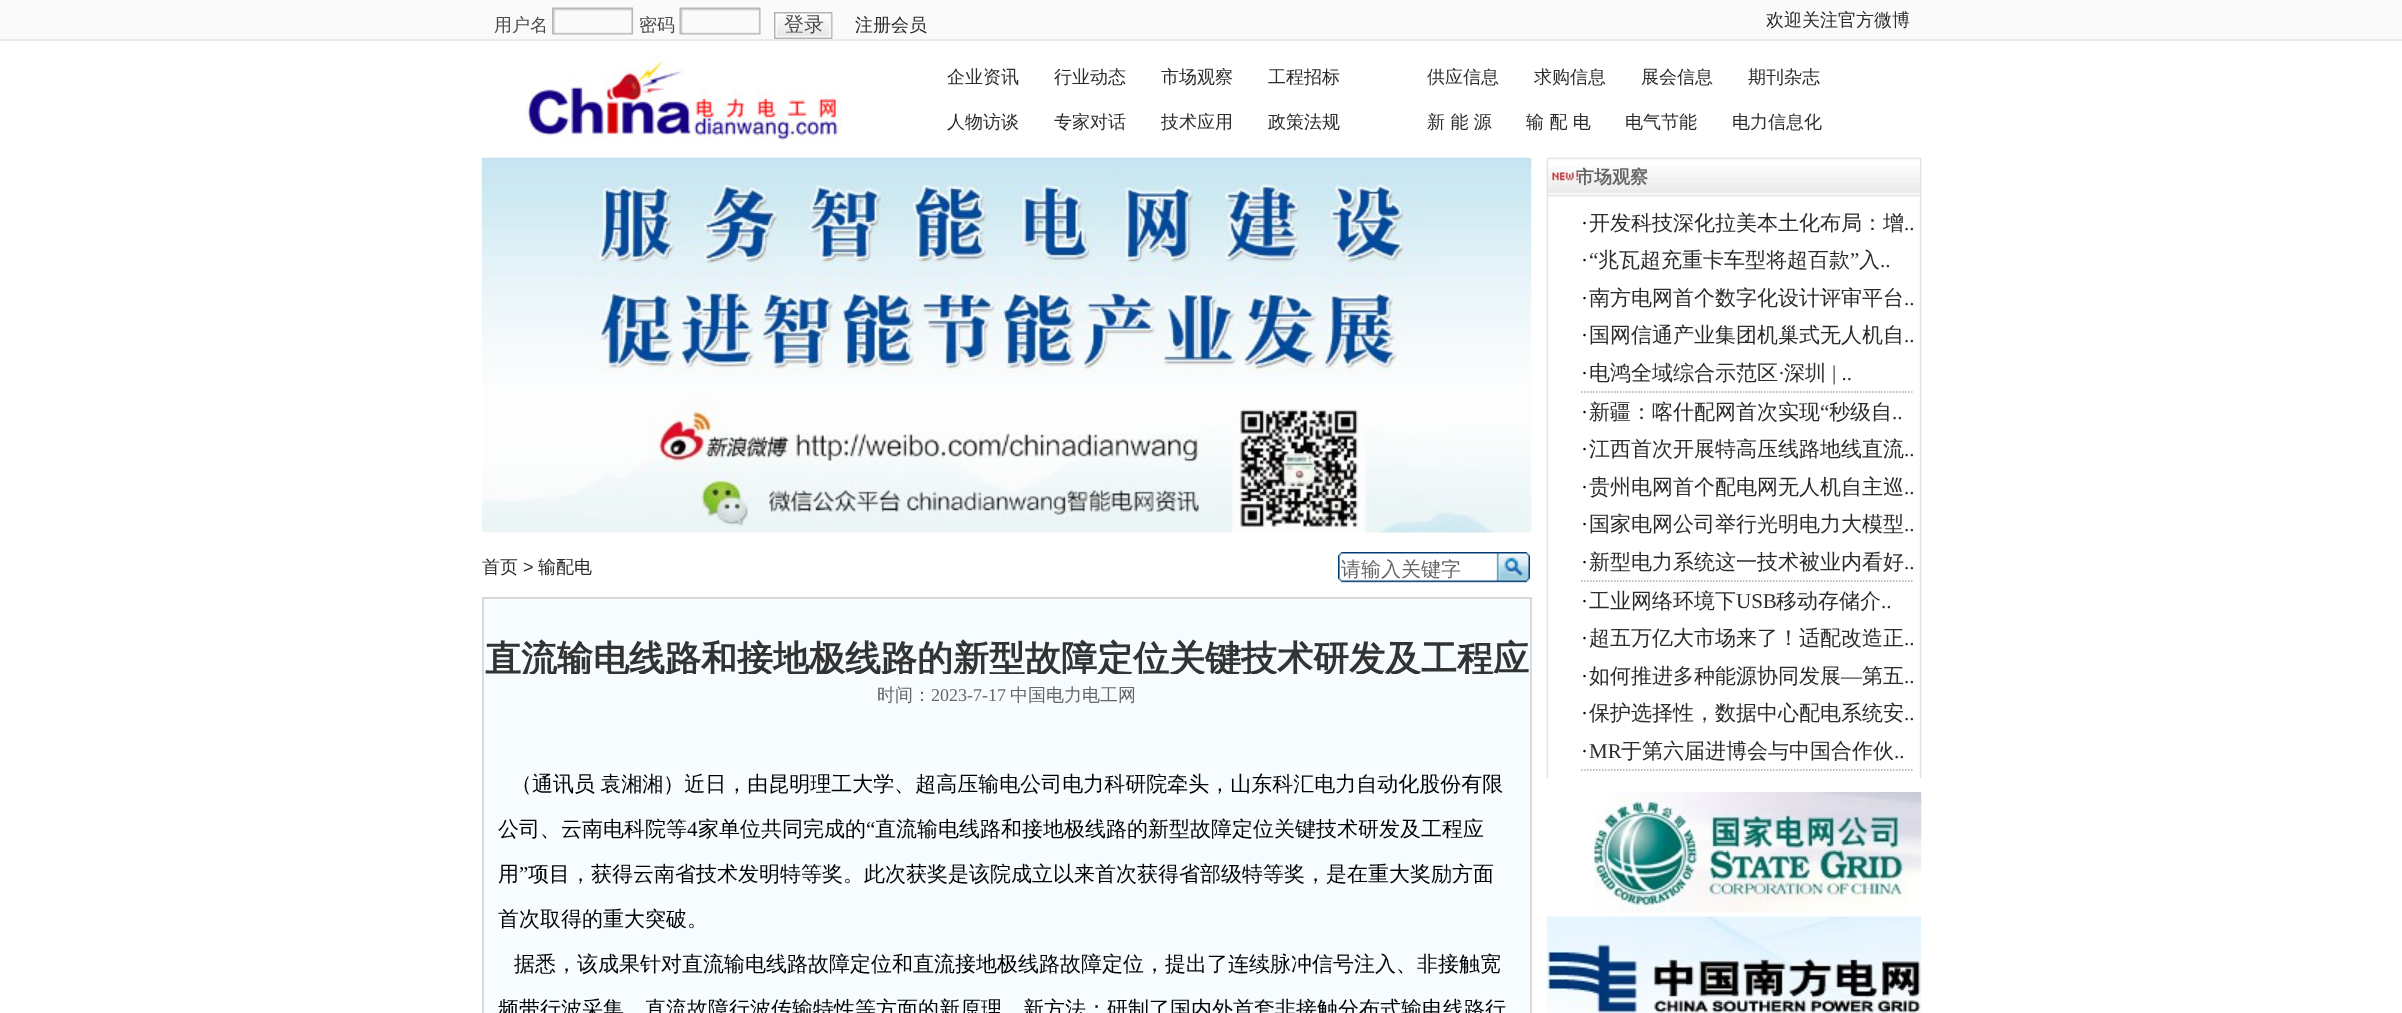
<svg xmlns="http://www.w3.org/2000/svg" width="2402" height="1013">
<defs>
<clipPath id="clip1"><rect x="483" y="629" width="1047" height="45"/></clipPath>
</defs>
<rect width="100%" height="100%" fill="#fff"/>
<rect width="2402" height="39" fill="#fafafa"/>
<rect y="39" width="2402" height="2" fill="#e7ecf0"/>
<text x="494" y="31" style="font-family:WenQuanYi Zen Hei;font-size:18px;font-weight:500;fill:#4a4a4a">用户名</text>
<image x="552" y="7" width="81" height="28" href="media/1.png"/>
<text x="639" y="31" style="font-family:WenQuanYi Zen Hei;font-size:18px;font-weight:500;fill:#4a4a4a">密码</text>
<image x="679" y="7" width="82" height="28" href="media/2.png"/>
<rect x="832" y="12" width="1" height="27" fill="#fff"/>
<image x="774" y="12" width="59" height="27" href="media/3.png"/>
<text x="784" y="31" style="font-family:WenQuanYi Zen Hei;font-size:20px;font-weight:500;fill:#4a4a4a">登录</text>
<text x="855" y="31" style="font-family:WenQuanYi Zen Hei;font-size:18px;font-weight:500;fill:#2b2b2b">注册会员</text>
<text x="1766" y="26" style="font-family:WenQuanYi Zen Hei;font-size:18px;font-weight:500;fill:#2b2b2b">欢迎关注官方微博</text>
<image x="524" y="54" width="318" height="88" href="media/4.png"/>
<text x="947" y="83" style="font-family:WenQuanYi Zen Hei;font-size:18px;font-weight:500;fill:#2b2b2b">企业资讯</text>
<text x="1054" y="83" style="font-family:WenQuanYi Zen Hei;font-size:18px;font-weight:500;fill:#2b2b2b">行业动态</text>
<text x="1161" y="83" style="font-family:WenQuanYi Zen Hei;font-size:18px;font-weight:500;fill:#2b2b2b">市场观察</text>
<text x="1268" y="83" style="font-family:WenQuanYi Zen Hei;font-size:18px;font-weight:500;fill:#2b2b2b">工程招标</text>
<text x="1427" y="83" style="font-family:WenQuanYi Zen Hei;font-size:18px;font-weight:500;fill:#2b2b2b">供应信息</text>
<text x="1534" y="83" style="font-family:WenQuanYi Zen Hei;font-size:18px;font-weight:500;fill:#2b2b2b">求购信息</text>
<text x="1641" y="83" style="font-family:WenQuanYi Zen Hei;font-size:18px;font-weight:500;fill:#2b2b2b">展会信息</text>
<text x="1748" y="83" style="font-family:WenQuanYi Zen Hei;font-size:18px;font-weight:500;fill:#2b2b2b">期刊杂志</text>
<text x="947" y="128" style="font-family:WenQuanYi Zen Hei;font-size:18px;font-weight:500;fill:#2b2b2b">人物访谈</text>
<text x="1054" y="128" style="font-family:WenQuanYi Zen Hei;font-size:18px;font-weight:500;fill:#2b2b2b">专家对话</text>
<text x="1161" y="128" style="font-family:WenQuanYi Zen Hei;font-size:18px;font-weight:500;fill:#2b2b2b">技术应用</text>
<text x="1268" y="128" style="font-family:WenQuanYi Zen Hei;font-size:18px;font-weight:500;fill:#2b2b2b">政策法规</text>
<text x="1427" y="128" style="font-family:WenQuanYi Zen Hei;font-size:18px;font-weight:500;fill:#2b2b2b">新 能 源</text>
<text x="1526" y="128" style="font-family:WenQuanYi Zen Hei;font-size:18px;font-weight:500;fill:#2b2b2b">输 配 电</text>
<text x="1625" y="128" style="font-family:WenQuanYi Zen Hei;font-size:18px;font-weight:500;fill:#2b2b2b">电气节能</text>
<text x="1732" y="128" style="font-family:WenQuanYi Zen Hei;font-size:18px;font-weight:500;fill:#2b2b2b">电力信息化</text>
<image x="481" y="157" width="1051" height="376" href="media/5.png"/>
<text x="482" y="573" style="font-family:WenQuanYi Zen Hei;font-size:18px;font-weight:500;fill:#2b2b2b">首页</text>
<text x="523" y="573" style="font-family:Liberation Sans;font-size:18px;fill:#2b2b2b">&gt;</text>
<text x="538" y="573" style="font-family:WenQuanYi Zen Hei;font-size:18px;font-weight:500;fill:#2b2b2b">输配电</text>
<image x="1338" y="552" width="192" height="31" href="media/6.png"/>
<text x="1341" y="576" style="font-family:WenQuanYi Zen Hei;font-size:20px;font-weight:500;fill:#666">请输入关键字</text>
<rect x="483" y="598" width="1048" height="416" fill="#f6fcff" stroke="#d9d9d9" stroke-width="2"/>
<g clip-path="url(#clip1)">
<text x="485" y="671" style="font-family:WenQuanYi Zen Hei;font-size:36px;font-weight:bold;fill:#333">直流输电线路和接地极线路的新型故障定位关键技术研发及工程应</text>
</g>
<text x="877" y="701" style="font-family:WenQuanYi Zen Hei;font-size:18px;font-weight:500;fill:#666">时间：</text>
<text x="931" y="701" style="font-family:Liberation Serif;font-size:18px;fill:#666">2023-7-17</text>
<text x="1010" y="701" style="font-family:WenQuanYi Zen Hei;font-size:18px;font-weight:500;fill:#666">中国电力电工网</text>
<text x="511" y="791" word-spacing="-1" style="font-family:WenQuanYi Zen Hei;font-size:21px;font-weight:500;fill:#000">（通讯员 袁湘湘）近日，由昆明理工大学、超高压输电公司电力科研院牵头，山东科汇电力自动化股份有限</text>
<text x="498" y="836" style="font-family:WenQuanYi Zen Hei;font-size:21px;font-weight:500;fill:#000">公司、云南电科院等</text>
<text x="687" y="836" style="font-family:Liberation Serif;font-size:21px;fill:#000">4</text>
<text x="698" y="836" style="font-family:WenQuanYi Zen Hei;font-size:21px;font-weight:500;fill:#000">家单位共同完成的</text>
<text x="866" y="836" style="font-family:Liberation Serif;font-size:21px;fill:#000">“</text>
<text x="875" y="836" style="font-family:WenQuanYi Zen Hei;font-size:21px;font-weight:500;fill:#000">直流输电线路和接地极线路的新型故障定位关键技术研发及工程应</text>
<text x="498" y="881" style="font-family:WenQuanYi Zen Hei;font-size:21px;font-weight:500;fill:#000">用</text>
<text x="519" y="881" style="font-family:Liberation Serif;font-size:21px;fill:#000">”</text>
<text x="528" y="881" style="font-family:WenQuanYi Zen Hei;font-size:21px;font-weight:500;fill:#000">项目，获得云南省技术发明特等奖。此次获奖是该院成立以来首次获得省部级特等奖，是在重大奖励方面</text>
<text x="498" y="926" style="font-family:WenQuanYi Zen Hei;font-size:21px;font-weight:500;fill:#000">首次取得的重大突破。</text>
<text x="514" y="971" style="font-family:WenQuanYi Zen Hei;font-size:21px;font-weight:500;fill:#000">据悉，该成果针对直流输电线路故障定位和直流接地极线路故障定位，提出了连续脉冲信号注入、非接触宽</text>
<text x="498" y="1016" style="font-family:WenQuanYi Zen Hei;font-size:21px;font-weight:500;fill:#000">频带行波采集、直流故障行波传输特性等方面的新原理、新方法；研制了国内外首套非接触分布式输电线路行</text>
<image x="1546" y="157" width="376" height="622" href="media/7.png"/>
<image x="1548" y="157" width="372" height="40" href="media/8.png"/>
<image x="1552" y="172" width="27" height="9" href="media/9.png"/>
<text x="1576" y="183" style="font-family:WenQuanYi Zen Hei;font-size:18px;font-weight:bold;fill:#666">市场观察</text>
<text x="1581" y="230" style="font-family:Liberation Serif;font-size:21px;fill:#000">·</text>
<text x="1589" y="230" style="font-family:WenQuanYi Zen Hei;font-size:21px;font-weight:500;fill:#2b2b2b">开发科技深化拉美本土化布局：增</text>
<text x="1904" y="230" style="font-family:Liberation Serif;font-size:21px;fill:#2b2b2b">..</text>
<text x="1589" y="267" style="font-family:Liberation Serif;font-size:21px;fill:#2b2b2b">“</text>
<text x="1598" y="267" style="font-family:WenQuanYi Zen Hei;font-size:21px;font-weight:500;fill:#2b2b2b">兆瓦超充重卡车型将超百款</text>
<text x="1850" y="267" style="font-family:Liberation Serif;font-size:21px;fill:#2b2b2b">”</text>
<text x="1859" y="267" style="font-family:WenQuanYi Zen Hei;font-size:21px;font-weight:500;fill:#2b2b2b">入</text>
<text x="1581" y="267" style="font-family:Liberation Serif;font-size:21px;fill:#000">·</text>
<text x="1880" y="267" style="font-family:Liberation Serif;font-size:21px;fill:#2b2b2b">..</text>
<text x="1581" y="305" style="font-family:Liberation Serif;font-size:21px;fill:#000">·</text>
<text x="1589" y="305" style="font-family:WenQuanYi Zen Hei;font-size:21px;font-weight:500;fill:#2b2b2b">南方电网首个数字化设计评审平台</text>
<text x="1904" y="305" style="font-family:Liberation Serif;font-size:21px;fill:#2b2b2b">..</text>
<text x="1581" y="342" style="font-family:Liberation Serif;font-size:21px;fill:#000">·</text>
<text x="1589" y="342" style="font-family:WenQuanYi Zen Hei;font-size:21px;font-weight:500;fill:#2b2b2b">国网信通产业集团机巢式无人机自</text>
<text x="1904" y="342" style="font-family:Liberation Serif;font-size:21px;fill:#2b2b2b">..</text>
<path d="M1581 392h333" fill="none" stroke="#aaa" stroke-width="1.5" stroke-dasharray="1.5 1.5"/>
<text x="1581" y="380" style="font-family:Liberation Serif;font-size:21px;fill:#000">·</text>
<text x="1589" y="380" style="font-family:WenQuanYi Zen Hei;font-size:21px;font-weight:500;fill:#2b2b2b">电鸿全域综合示范区</text>
<text x="1778" y="380" style="font-family:Liberation Serif;font-size:21px;fill:#2b2b2b">·</text>
<text x="1784" y="380" style="font-family:WenQuanYi Zen Hei;font-size:21px;font-weight:500;fill:#2b2b2b">深圳</text>
<text x="1832" y="380" style="font-family:Liberation Serif;font-size:21px;fill:#2b2b2b">| ..</text>
<text x="1589" y="419" style="font-family:WenQuanYi Zen Hei;font-size:21px;font-weight:500;fill:#2b2b2b">新疆：喀什配网首次实现</text>
<text x="1820" y="419" style="font-family:Liberation Serif;font-size:21px;fill:#2b2b2b">“</text>
<text x="1829" y="419" style="font-family:WenQuanYi Zen Hei;font-size:21px;font-weight:500;fill:#2b2b2b">秒级自</text>
<text x="1581" y="419" style="font-family:Liberation Serif;font-size:21px;fill:#000">·</text>
<text x="1892" y="419" style="font-family:Liberation Serif;font-size:21px;fill:#2b2b2b">..</text>
<text x="1581" y="456" style="font-family:Liberation Serif;font-size:21px;fill:#000">·</text>
<text x="1589" y="456" style="font-family:WenQuanYi Zen Hei;font-size:21px;font-weight:500;fill:#2b2b2b">江西首次开展特高压线路地线直流</text>
<text x="1904" y="456" style="font-family:Liberation Serif;font-size:21px;fill:#2b2b2b">..</text>
<text x="1581" y="494" style="font-family:Liberation Serif;font-size:21px;fill:#000">·</text>
<text x="1589" y="494" style="font-family:WenQuanYi Zen Hei;font-size:21px;font-weight:500;fill:#2b2b2b">贵州电网首个配电网无人机自主巡</text>
<text x="1904" y="494" style="font-family:Liberation Serif;font-size:21px;fill:#2b2b2b">..</text>
<text x="1581" y="531" style="font-family:Liberation Serif;font-size:21px;fill:#000">·</text>
<text x="1589" y="531" style="font-family:WenQuanYi Zen Hei;font-size:21px;font-weight:500;fill:#2b2b2b">国家电网公司举行光明电力大模型</text>
<text x="1904" y="531" style="font-family:Liberation Serif;font-size:21px;fill:#2b2b2b">..</text>
<path d="M1581 581h333" fill="none" stroke="#aaa" stroke-width="1.5" stroke-dasharray="1.5 1.5"/>
<text x="1581" y="569" style="font-family:Liberation Serif;font-size:21px;fill:#000">·</text>
<text x="1589" y="569" style="font-family:WenQuanYi Zen Hei;font-size:21px;font-weight:500;fill:#2b2b2b">新型电力系统这一技术被业内看好</text>
<text x="1904" y="569" style="font-family:Liberation Serif;font-size:21px;fill:#2b2b2b">..</text>
<text x="1581" y="608" style="font-family:Liberation Serif;font-size:21px;fill:#000">·</text>
<text x="1589" y="608" style="font-family:WenQuanYi Zen Hei;font-size:21px;font-weight:500;fill:#2b2b2b">工业网络环境下</text>
<text x="1736" y="608" style="font-family:Liberation Serif;font-size:21px;fill:#2b2b2b">USB</text>
<text x="1776" y="608" style="font-family:WenQuanYi Zen Hei;font-size:21px;font-weight:500;fill:#2b2b2b">移动存储介</text>
<text x="1881" y="608" style="font-family:Liberation Serif;font-size:21px;fill:#2b2b2b">..</text>
<text x="1581" y="645" style="font-family:Liberation Serif;font-size:21px;fill:#000">·</text>
<text x="1589" y="645" style="font-family:WenQuanYi Zen Hei;font-size:21px;font-weight:500;fill:#2b2b2b">超五万亿大市场来了！适配改造正</text>
<text x="1904" y="645" style="font-family:Liberation Serif;font-size:21px;fill:#2b2b2b">..</text>
<text x="1581" y="683" style="font-family:Liberation Serif;font-size:21px;fill:#000">·</text>
<text x="1589" y="683" style="font-family:WenQuanYi Zen Hei;font-size:21px;font-weight:500;fill:#2b2b2b">如何推进多种能源协同发展</text>
<text x="1841" y="683" style="font-family:Liberation Serif;font-size:21px;fill:#2b2b2b">—</text>
<text x="1862" y="683" style="font-family:WenQuanYi Zen Hei;font-size:21px;font-weight:500;fill:#2b2b2b">第五</text>
<text x="1904" y="683" style="font-family:Liberation Serif;font-size:21px;fill:#2b2b2b">..</text>
<text x="1581" y="720" style="font-family:Liberation Serif;font-size:21px;fill:#000">·</text>
<text x="1589" y="720" style="font-family:WenQuanYi Zen Hei;font-size:21px;font-weight:500;fill:#2b2b2b">保护选择性，数据中心配电系统安</text>
<text x="1904" y="720" style="font-family:Liberation Serif;font-size:21px;fill:#2b2b2b">..</text>
<path d="M1581 770h333" fill="none" stroke="#aaa" stroke-width="1.5" stroke-dasharray="1.5 1.5"/>
<text x="1581" y="758" style="font-family:Liberation Serif;font-size:21px;fill:#000">·</text>
<text x="1589" y="758" style="font-family:Liberation Serif;font-size:21px;fill:#2b2b2b">MR</text>
<text x="1621" y="758" style="font-family:WenQuanYi Zen Hei;font-size:21px;font-weight:500;fill:#2b2b2b">于第六届进博会与中国合作伙</text>
<text x="1894" y="758" style="font-family:Liberation Serif;font-size:21px;fill:#2b2b2b">..</text>
<image x="1593" y="792" width="329" height="120" href="media/10.png"/>
<image x="1546" y="916" width="376" height="97" href="media/11.png"/>
</svg>
